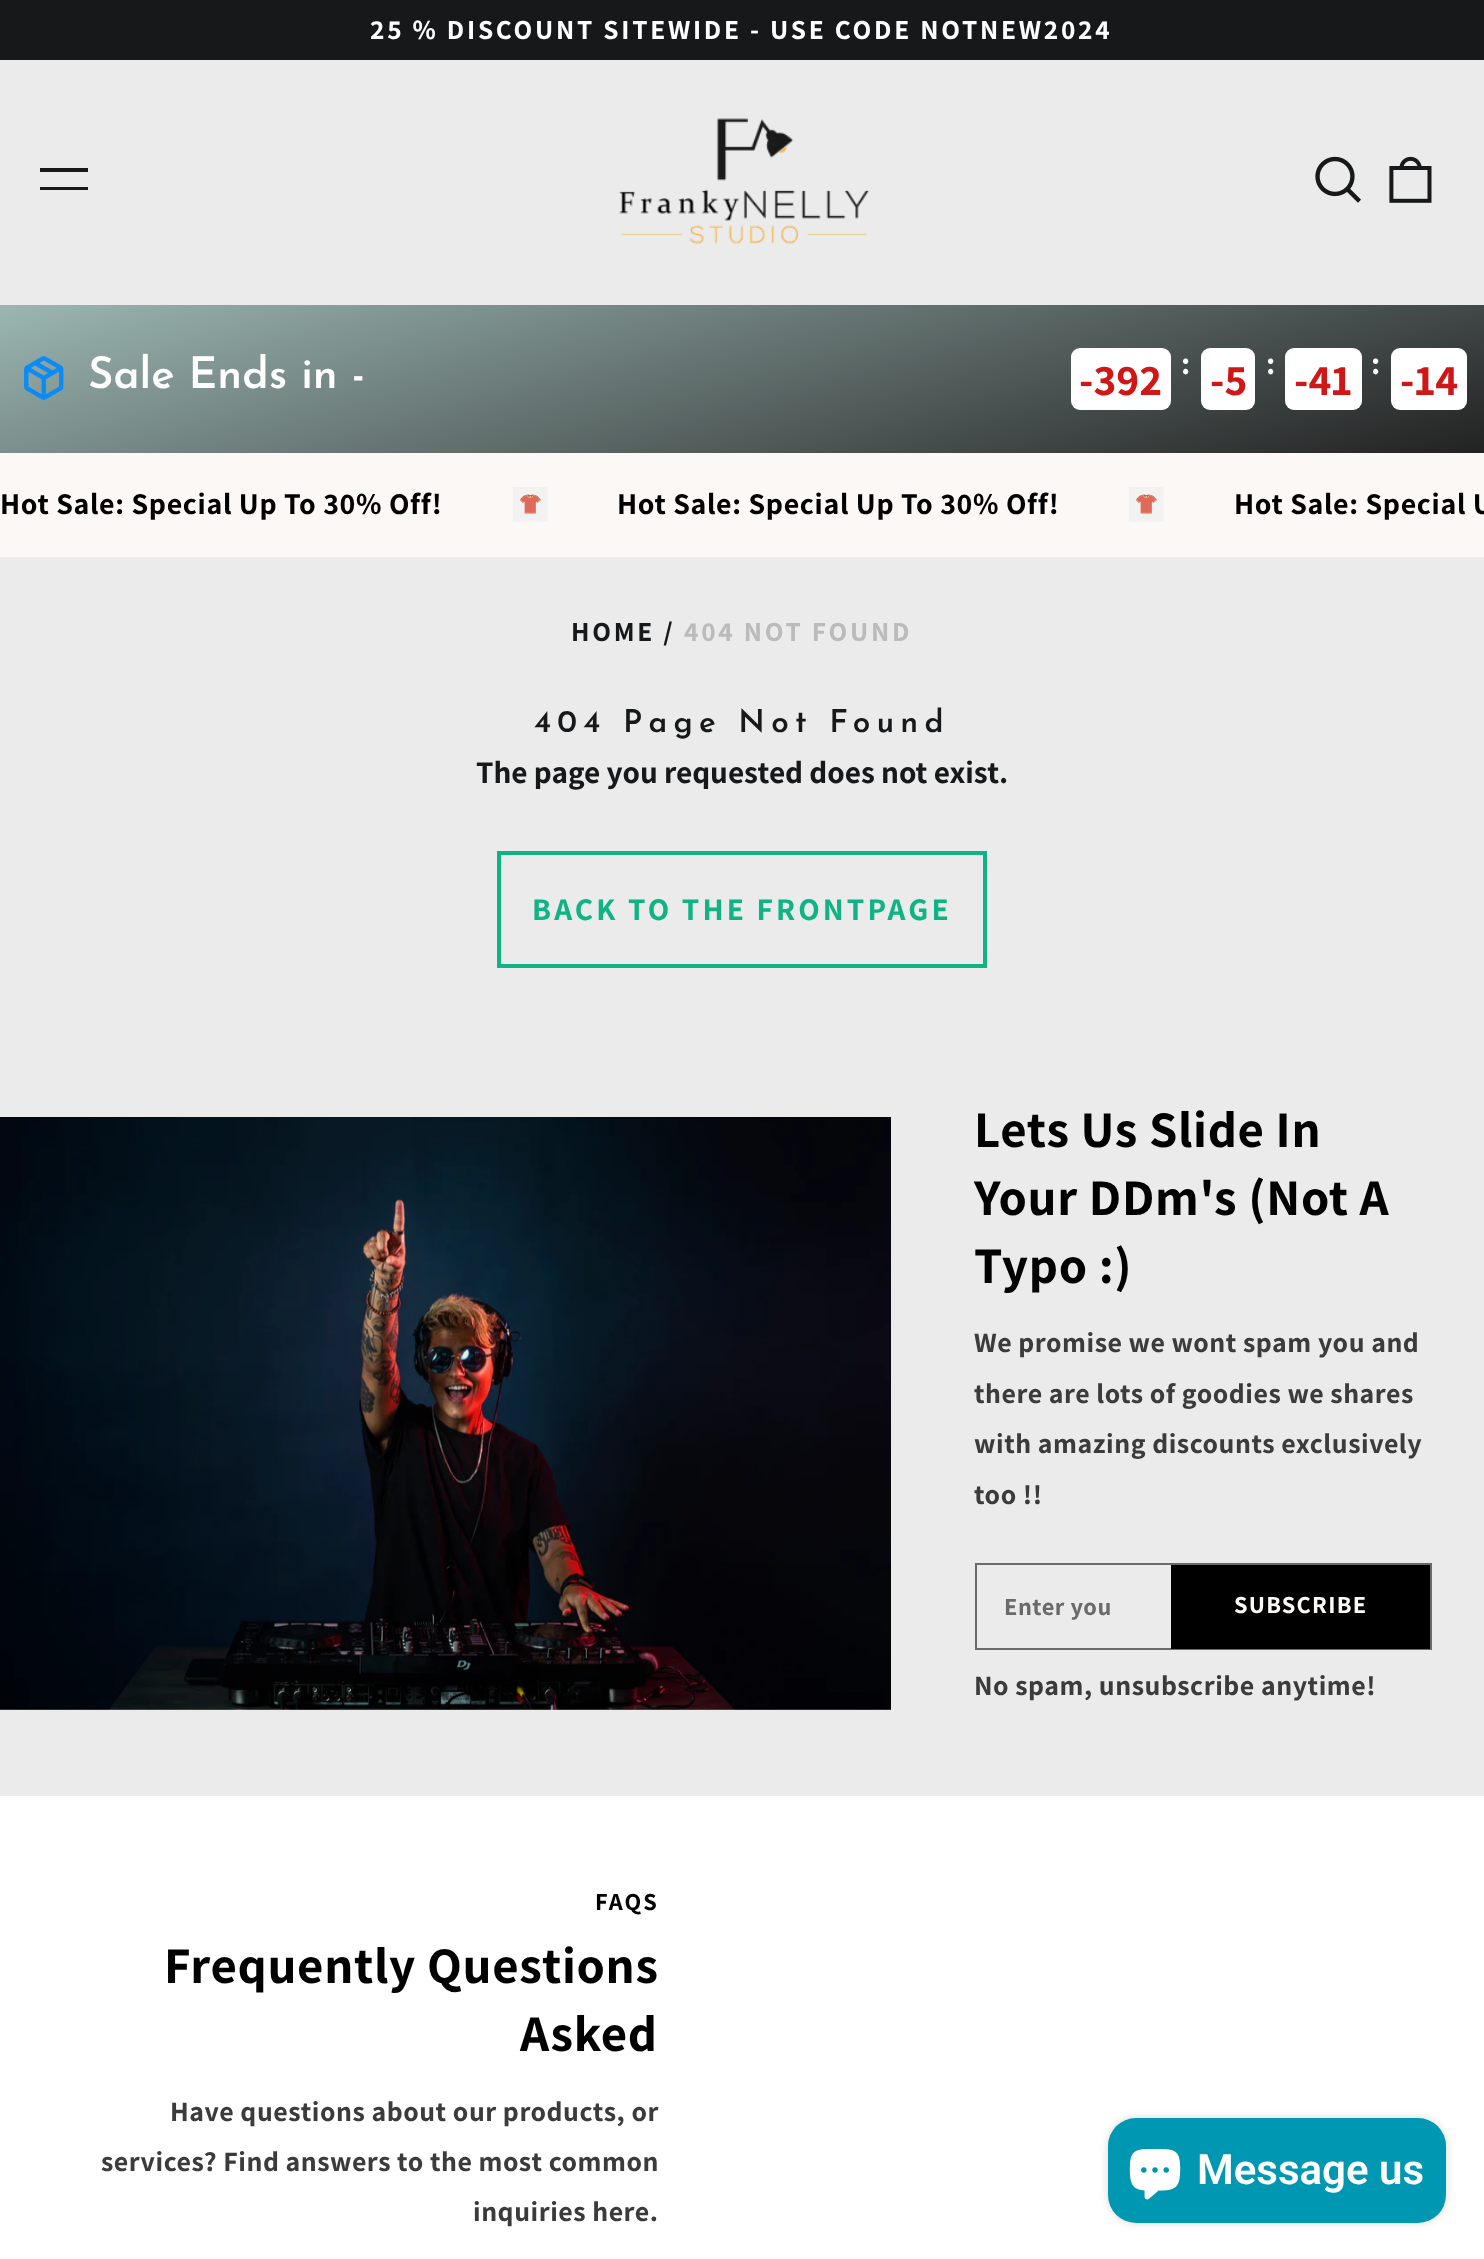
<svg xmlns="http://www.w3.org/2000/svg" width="1484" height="2259">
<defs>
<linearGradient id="g1" gradientUnits="userSpaceOnUse" x1="666" y1="114" x2="818" y2="644"><stop offset="0" stop-color="#9bb6b2"/><stop offset="1" stop-color="#222"/></linearGradient>
</defs>
<rect width="100%" height="100%" fill="#ebebeb"/>
<rect width="1484" height="60" fill="#161819"/>
<text x="370" y="39" style="font-family:Assistant;font-size:27.55px;font-weight:bold;letter-spacing:2.75px;fill:#fff">25 % DISCOUNT SITEWIDE - USE CODE NOTNEW2024</text>
<path d="M88 187v3h-48v-3zm0-19v4h-48v-4z" fill="#161819" fill-rule="evenodd"/>
<image x="619" y="118" width="250" height="126" href="media/1.png"/>
<image x="1315" y="156" width="46" height="47" href="media/2.png"/>
<image x="1389" y="156" width="43" height="47" href="media/3.png"/>
<rect y="305" width="1484" height="148" fill="url(#g1)"/>
<image x="24" y="356" width="40" height="44" href="media/4.png"/>
<text x="88" y="388" style="font-family:Josefin Sans;font-size:43.75px;font-weight:600;fill:#fff">Sale Ends in -</text>
<rect x="1071" y="348" width="100" height="62" rx="9" fill="#fff"/>
<text x="1079" y="395" style="font-family:Assistant;font-size:43.75px;font-weight:bold;fill:#d01717">-392</text>
<text x="1181" y="374" style="font-family:Assistant;font-size:31.5px;font-weight:bold;fill:#fff">:</text>
<rect x="1201" y="348" width="54" height="62" rx="9" fill="#fff"/>
<text x="1210" y="395" style="font-family:Assistant;font-size:43.75px;font-weight:bold;fill:#d01717">-5</text>
<text x="1266" y="374" style="font-family:Assistant;font-size:31.5px;font-weight:bold;fill:#fff">:</text>
<rect x="1285" y="348" width="77" height="62" rx="9" fill="#fff"/>
<text x="1294" y="395" style="font-family:Assistant;font-size:43.75px;font-weight:bold;fill:#d01717">-41</text>
<text x="1371" y="374" style="font-family:Assistant;font-size:31.5px;font-weight:bold;fill:#fff">:</text>
<rect x="1391" y="348" width="76" height="62" rx="9" fill="#fff"/>
<text x="1400" y="395" style="font-family:Assistant;font-size:43.75px;font-weight:bold;fill:#d01717">-14</text>
<rect y="453" width="1484" height="104" fill="#fcf8f5"/>
<text x="0" y="514" style="font-family:Assistant;font-size:30.1px;font-weight:bold;letter-spacing:0.7px;fill:#000">Hot Sale: Special Up To 30% Off!</text>
<image x="513" y="487" width="35" height="35" href="media/5.png"/>
<text x="617" y="514" style="font-family:Assistant;font-size:30.1px;font-weight:bold;letter-spacing:0.7px;fill:#000">Hot Sale: Special Up To 30% Off!</text>
<image x="1129" y="487" width="35" height="35" href="media/5.png"/>
<text x="1234" y="514" style="font-family:Assistant;font-size:30.1px;font-weight:bold;letter-spacing:0.7px;fill:#000">Hot Sale: Special U</text>
<text x="571" y="641" style="font-family:Assistant;font-size:27.55px;font-weight:bold;letter-spacing:2.75px;fill:#161819">HOME /</text>
<text x="684" y="641" style="font-family:Assistant;font-size:27.55px;font-weight:bold;letter-spacing:2.75px;fill:#bbb">404 NOT FOUND</text>
<text x="534" y="732" style="font-family:Josefin Sans;font-size:31.5px;font-weight:600;letter-spacing:6.25px;fill:#161819">404 Page Not Found</text>
<text x="476" y="783" style="font-family:Assistant;font-size:31.5px;font-weight:bold;fill:#161819">The page you requested does not exist.</text>
<rect x="499" y="853" width="486" height="113" fill="none" stroke="#10b484" stroke-width="4"/>
<text x="532" y="920" style="font-family:Assistant;font-size:31.5px;font-weight:bold;letter-spacing:3.15px;fill:#10b484">BACK TO THE FRONTPAGE</text>
<image x="0" y="1117" width="891" height="593" href="media/6.png"/>
<text x="974" y="1147" style="font-family:Assistant;font-size:51.25px;font-weight:bold;letter-spacing:0.7px;fill:#000">Lets Us Slide In</text>
<text x="974" y="1215" style="font-family:Assistant;font-size:51.25px;font-weight:bold;letter-spacing:0.7px;fill:#000">Your DDm's (Not A</text>
<text x="974" y="1283" style="font-family:Assistant;font-size:51.25px;font-weight:bold;letter-spacing:0.7px;fill:#000">Typo :)</text>
<text x="974" y="1352" style="font-family:Assistant;font-size:28px;font-weight:bold;letter-spacing:0.55px;fill:#3b3b3b">We promise we wont spam you and</text>
<text x="974" y="1403" style="font-family:Assistant;font-size:28px;font-weight:bold;letter-spacing:0.55px;fill:#3b3b3b">there are lots of goodies we shares</text>
<text x="974" y="1453" style="font-family:Assistant;font-size:28px;font-weight:bold;letter-spacing:0.55px;fill:#3b3b3b">with amazing discounts exclusively</text>
<text x="974" y="1504" style="font-family:Assistant;font-size:28px;font-weight:bold;letter-spacing:0.55px;fill:#3b3b3b">too !!</text>
<rect x="976" y="1564" width="455" height="85" fill="none" stroke="#6a6a6a" stroke-width="2"/>
<text x="1004" y="1615" style="font-family:Assistant;font-size:24.5px;font-weight:bold;letter-spacing:0.55px;fill:#6a6a6a">Enter you</text>
<rect x="1171" y="1565" width="259" height="84" fill="#000"/>
<text x="1234" y="1613" style="font-family:Assistant;font-size:24.5px;font-weight:bold;letter-spacing:1.25px;fill:#fcf8f5">SUBSCRIBE</text>
<text x="974" y="1695" style="font-family:Assistant;font-size:28px;font-weight:bold;letter-spacing:0.55px;fill:#3b3b3b">No spam, unsubscribe anytime!</text>
<rect y="1796" width="1484" height="463" fill="#fff"/>
<text x="595" y="1910" style="font-family:Assistant;font-size:24.5px;font-weight:bold;letter-spacing:2px;fill:#000">FAQS</text>
<text x="164" y="1983" style="font-family:Assistant;font-size:51.25px;font-weight:bold;letter-spacing:0.7px;fill:#000">Frequently Questions</text>
<text x="520" y="2051" style="font-family:Assistant;font-size:51.25px;font-weight:bold;letter-spacing:0.7px;fill:#000">Asked</text>
<text x="170" y="2121" style="font-family:Assistant;font-size:28px;font-weight:bold;letter-spacing:0.55px;fill:#3b3b3b">Have questions about our products, or</text>
<text x="101" y="2171" style="font-family:Assistant;font-size:28px;font-weight:bold;letter-spacing:0.55px;fill:#3b3b3b">services? Find answers to the most common</text>
<text x="473" y="2221" style="font-family:Assistant;font-size:28px;font-weight:bold;letter-spacing:0.55px;fill:#3b3b3b">inquiries here.</text>
<rect x="1108" y="2118" width="338" height="105" rx="28" fill="#00000026" filter="blur(4.5px)"/>
<rect x="1108" y="2118" width="338" height="105" rx="28" fill="#0097b2"/>
<image x="1129" y="2149" width="52" height="51" href="media/7.png"/>
<text x="1197" y="2184" style="font-family:Roboto;font-size:42px;font-weight:600;fill:#fff">Message us</text>
</svg>
